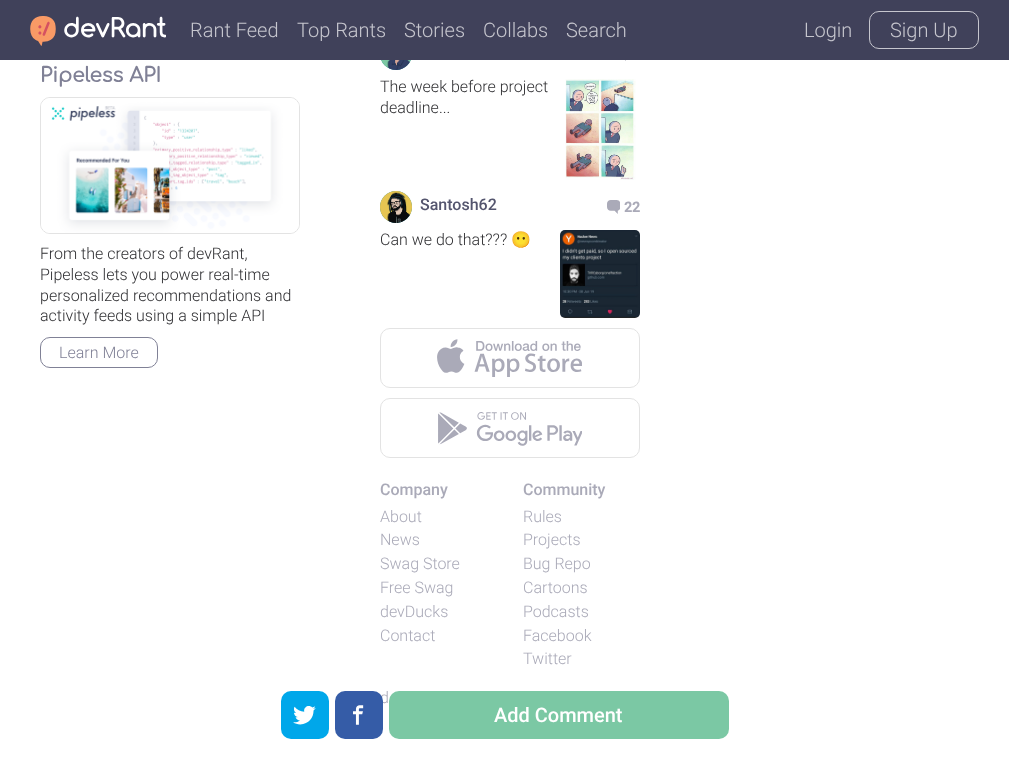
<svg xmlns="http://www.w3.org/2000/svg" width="1009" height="759">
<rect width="100%" height="100%" fill="#fff"/>
<circle cx="396" cy="54" r="16" fill="#2a8b9d"/>
<rect width="1009" height="60" fill="#40415a"/>
<image x="30" y="16" width="26" height="30" href="media/1.png"/>
<image x="38" y="21" width="12" height="15" href="media/2.png"/>
<image x="64" y="16" width="102" height="22" href="media/3.png"/>
<text x="190" y="37" style="font-family:Roboto;font-size:20px;font-weight:300;fill:#c6c6ce">Rant Feed</text>
<text x="297" y="37" style="font-family:Roboto;font-size:20px;font-weight:300;fill:#c6c6ce">Top Rants</text>
<text x="404" y="37" style="font-family:Roboto;font-size:20px;font-weight:300;fill:#c6c6ce">Stories</text>
<text x="483" y="37" style="font-family:Roboto;font-size:20px;font-weight:300;fill:#c6c6ce">Collabs</text>
<text x="566" y="37" style="font-family:Roboto;font-size:20px;font-weight:300;fill:#c6c6ce">Search</text>
<text x="804" y="37" style="font-family:Roboto;font-size:20px;font-weight:300;fill:#c6c6ce">Login</text>
<rect x="869.5" y="11.5" width="109" height="37" rx="9.5" fill="none" stroke="#c6c6ce"/>
<text x="890" y="37" style="font-family:Roboto;font-size:20px;font-weight:300;fill:#c6c6ce">Sign Up</text>
<text x="40" y="82" style="font-family:Comfortaa;font-size:20px;font-weight:bold;fill:#808196">Pipeless API</text>
<rect x="40.5" y="97.5" width="259" height="136" rx="9.5" fill="none" stroke="#e3e3e3"/>
<image x="41" y="98" width="258" height="135" href="media/4.png"/>
<text x="40" y="259" style="font-family:Roboto;font-size:16px;font-weight:300;fill:#2f2f32">From the creators of devRant,</text>
<text x="40" y="280" style="font-family:Roboto;font-size:16px;font-weight:300;fill:#2f2f32">Pipeless lets you power real-time</text>
<text x="40" y="301" style="font-family:Roboto;font-size:16px;font-weight:300;fill:#2f2f32">personalized recommendations and</text>
<text x="40" y="321" style="font-family:Roboto;font-size:16px;font-weight:300;fill:#2f2f32">activity feeds using a simple API</text>
<rect x="40.5" y="337.5" width="117" height="30" rx="9.5" fill="none" stroke="#808196"/>
<text x="59" y="358" style="font-family:Roboto;font-size:16px;font-weight:300;fill:#808196">Learn More</text>
<image x="381" y="60" width="30" height="10" href="media/5.png"/>
<image x="625" y="60" width="1" height="1" href="media/6.png"/>
<text x="380" y="92" style="font-family:Roboto;font-size:16px;font-weight:300;fill:#2f2f32">The week before project</text>
<image x="565" y="79" width="71" height="101" href="media/7.png"/>
<text x="380" y="113" style="font-family:Roboto;font-size:16px;font-weight:300;fill:#2f2f32">deadline...</text>
<circle cx="396" cy="207" r="16" fill="#2a8b9d"/>
<image x="380" y="191" width="32" height="32" href="media/8.png"/>
<text x="420" y="210" style="font-family:Roboto;font-size:16px;font-weight:500;fill:#54556e">Santosh62</text>
<image x="607" y="200" width="13" height="14" href="media/9.png"/>
<text x="624" y="212" style="font-family:Roboto;font-size:14px;font-weight:bold;fill:#aaaab8">22</text>
<text x="380" y="245" style="font-family:Roboto;font-size:16px;font-weight:300;fill:#2f2f32">Can we do that???</text>
<text x="511" y="245" style="font-family:Noto Color Emoji;font-size:16px;fill:#2f2f32">😶</text>
<image x="560" y="230" width="80" height="88" href="media/10.png"/>
<rect x="380.5" y="328.5" width="259" height="59" rx="9.5" fill="none" stroke="#e3e3e3"/>
<image x="437" y="339" width="145" height="38" href="media/11.png"/>
<rect x="380.5" y="398.5" width="259" height="59" rx="9.5" fill="none" stroke="#e3e3e3"/>
<image x="438" y="412" width="144" height="34" href="media/12.png"/>
<text x="380" y="495" style="font-family:Roboto;font-size:16px;font-weight:500;fill:#aaaab8">Company</text>
<text x="380" y="522" style="font-family:Roboto;font-size:16px;font-weight:300;fill:#aaaab8">About</text>
<text x="380" y="545" style="font-family:Roboto;font-size:16px;font-weight:300;fill:#aaaab8">News</text>
<text x="380" y="569" style="font-family:Roboto;font-size:16px;font-weight:300;fill:#aaaab8">Swag Store</text>
<text x="380" y="593" style="font-family:Roboto;font-size:16px;font-weight:300;fill:#aaaab8">Free Swag</text>
<text x="380" y="617" style="font-family:Roboto;font-size:16px;font-weight:300;fill:#aaaab8">devDucks</text>
<text x="380" y="641" style="font-family:Roboto;font-size:16px;font-weight:300;fill:#aaaab8">Contact</text>
<text x="523" y="495" style="font-family:Roboto;font-size:16px;font-weight:500;fill:#aaaab8">Community</text>
<text x="523" y="522" style="font-family:Roboto;font-size:16px;font-weight:300;fill:#aaaab8">Rules</text>
<text x="523" y="545" style="font-family:Roboto;font-size:16px;font-weight:300;fill:#aaaab8">Projects</text>
<text x="523" y="569" style="font-family:Roboto;font-size:16px;font-weight:300;fill:#aaaab8">Bug Repo</text>
<text x="523" y="593" style="font-family:Roboto;font-size:16px;font-weight:300;fill:#aaaab8">Cartoons</text>
<text x="523" y="617" style="font-family:Roboto;font-size:16px;font-weight:300;fill:#aaaab8">Podcasts</text>
<text x="523" y="641" style="font-family:Roboto;font-size:16px;font-weight:300;fill:#aaaab8">Facebook</text>
<text x="523" y="664" style="font-family:Roboto;font-size:16px;font-weight:300;fill:#aaaab8">Twitter</text>
<text x="380" y="703" style="font-family:Roboto;font-size:16px;font-weight:300;fill:#aaaab8">d</text>
<rect x="281" y="691" width="48" height="48" rx="10" fill="#00a7ea"/>
<image x="293" y="706" width="23" height="19" href="media/13.png"/>
<rect x="335" y="691" width="48" height="48" rx="10" fill="#355ca7"/>
<image x="353" y="705" width="11" height="20" href="media/14.png"/>
<rect x="389" y="691" width="340" height="48" rx="10" fill="#7bc8a4"/>
<text x="494" y="722" style="font-family:Roboto;font-size:20px;font-weight:500;fill:#fff">Add Comment</text>
</svg>
